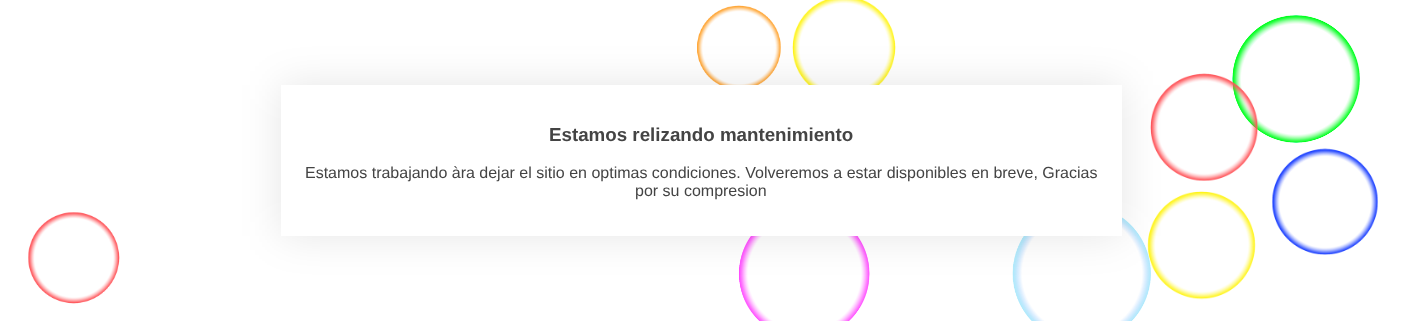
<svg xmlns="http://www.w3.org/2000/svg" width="1402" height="321">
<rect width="100%" height="100%" fill="#fff"/>
<image x="28" y="0" width="1350" height="321" href="media/1.png"/>
<rect x="281" y="85" width="841" height="151" fill="#0000001a" filter="blur(20px)"/>
<rect x="281" y="85" width="841" height="151" fill="#fff"/>
<text x="549" y="141" style="font-family:Liberation Sans;font-size:18.75px;font-weight:bold;fill:#444">Estamos relizando mantenimiento</text>
<text x="305" y="178" style="font-family:Liberation Sans;font-size:16px;fill:#444">Estamos trabajando àra dejar el sitio en optimas condiciones. Volveremos a estar disponibles en breve, Gracias</text>
<text x="635" y="196" style="font-family:Liberation Sans;font-size:16px;fill:#444">por su compresion</text>
</svg>
